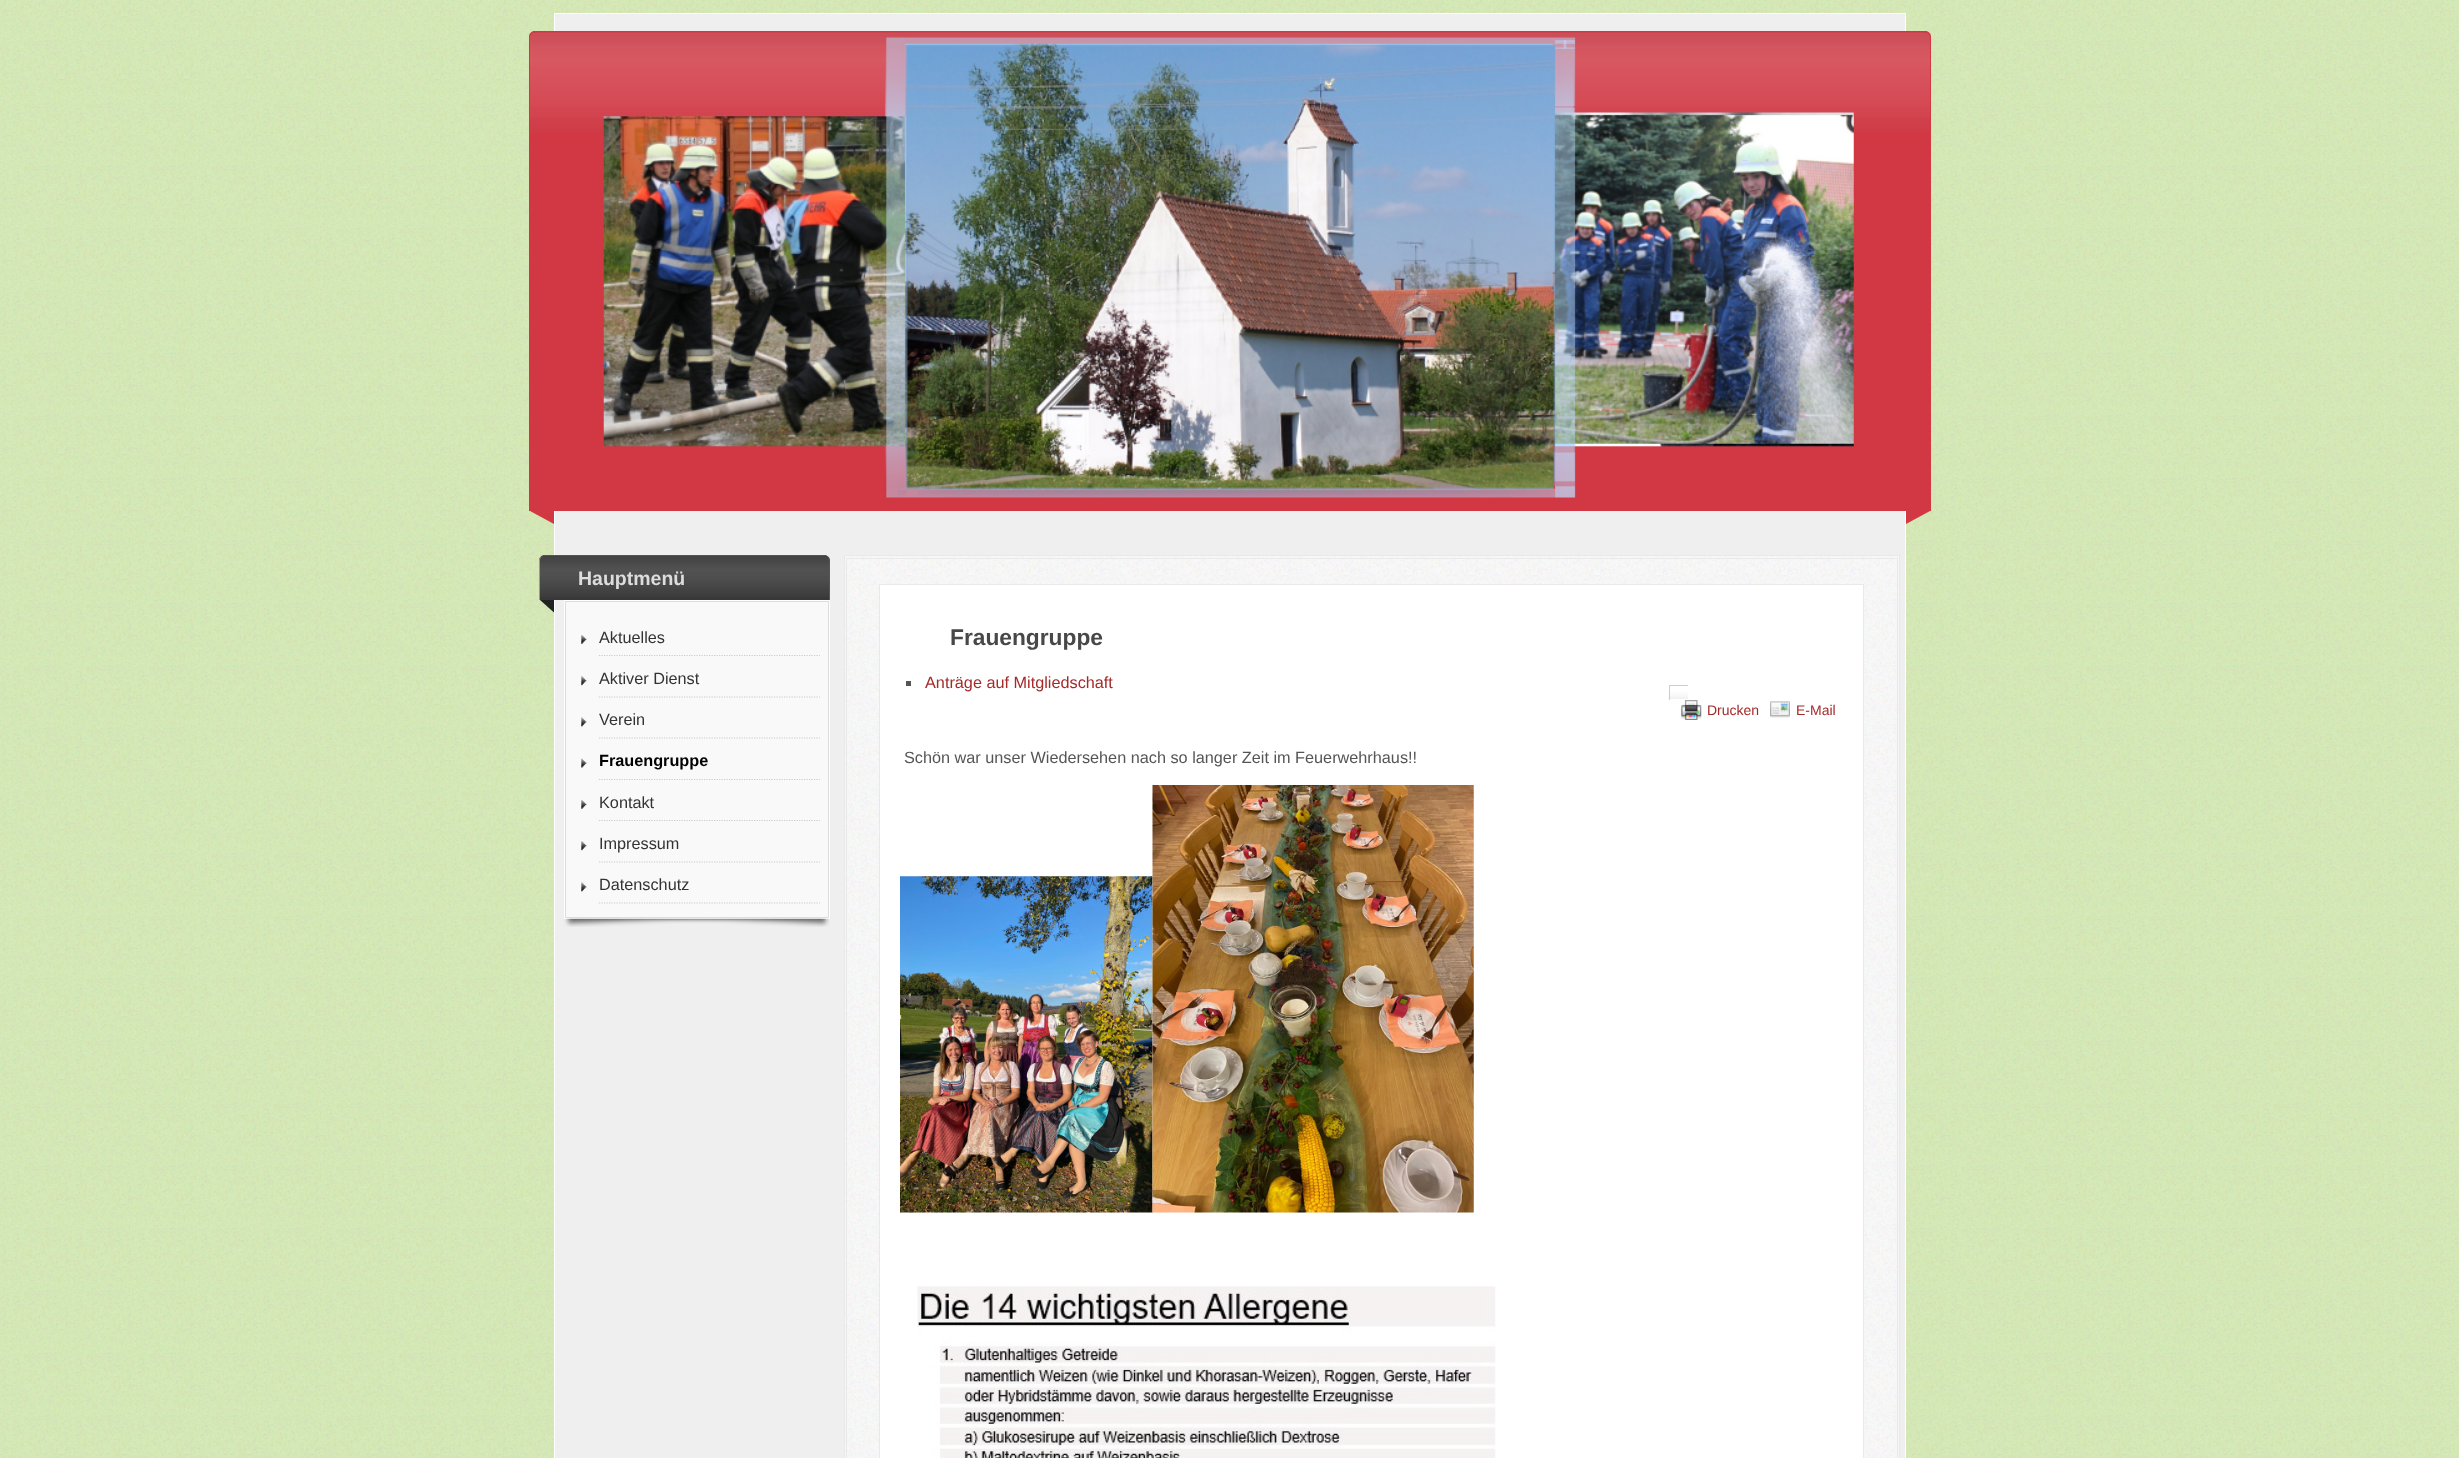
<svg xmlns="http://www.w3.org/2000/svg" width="2459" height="1458">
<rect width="100%" height="100%" fill="#d3e8b2"/>
<image x="0" y="0" width="2459" height="1458" href="media/1.png"/>
<rect x="554.5" y="13.5" width="1351" height="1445" fill="#efefef" stroke="#fff"/>
<path d="M535 31h1390c3.5 0 6 2.5 6 6v474h-1402v-474c0-3.5 2.5-6 6-6z" fill="#d13844"/>
<image x="529" y="32" width="1402" height="100" href="media/2.png"/>
<path d="M535 31h1390c3 0 6 3 6 7v473h-1402v-473c0-4 3-7 6-7zm0 1h1390c3 0 5 3 5 6v473h-1400v-473c0-3 2-6 5-6z" fill="#d13844" fill-rule="evenodd"/>
<image x="603" y="37" width="1251" height="461" href="media/3.png"/>
<path d="M530 511h24v13z" fill="#d13844"/>
<path d="M1906 511h24l-24 13z" fill="#d13844"/>
<path d="M545 555h279c3.5 0 6 2.5 6 6v39h-291v-39c0-3.5 2.5-6 6-6z" fill="#383838"/>
<image x="539" y="556" width="291" height="41" href="media/4.png"/>
<path d="M545 555h279c2 0 3 1 4 2c-1-1-2-1-4-1h-279c-2 0-3 1-4 2v-1c1-1 2-2 4-2z" fill="#555"/>
<path d="M829 600h1v-39c0-1-1-3-2-4c0 1 1 3 1 4z" fill="#555"/>
<path d="M539 600h1v-39c0-1 0-3 1-3v-1c-1 1-2 3-2 4z" fill="#999"/>
<text x="578" y="585" style="font-family:Liberation Sans;font-size:19.5px;font-weight:bold;fill:#ddd">Hauptmenü</text>
<path d="M540 600h14v12.5z" fill="#222"/>
<rect x="564.5" y="600.5" width="265" height="318" fill="none" stroke="#fff"/>
<rect x="565.5" y="601.5" width="263" height="316" fill="#f9f9f9" stroke="#ddd"/>
<image x="581" y="635" width="6" height="9" href="media/5.png"/>
<path d="M599 655.5h221" fill="none" stroke="#ccc" stroke-width="1.2" stroke-dasharray="1.25 1.25"/>
<text x="599" y="643" style="font-family:Liberation Sans;font-size:16.25px;fill:#333">Aktuelles</text>
<image x="581" y="676" width="6" height="10" href="media/6.png"/>
<path d="M599 697h221" fill="none" stroke="#ccc" stroke-width="1.2" stroke-dasharray="1.25 1.25"/>
<text x="599" y="684" style="font-family:Liberation Sans;font-size:16.25px;fill:#333">Aktiver Dienst</text>
<image x="581" y="717" width="6" height="10" href="media/7.png"/>
<path d="M599 738h221" fill="none" stroke="#ccc" stroke-width="1.2" stroke-dasharray="1.25 1.25"/>
<text x="599" y="725" style="font-family:Liberation Sans;font-size:16.25px;fill:#333">Verein</text>
<image x="581" y="758" width="6" height="10" href="media/8.png"/>
<path d="M599 779.5h221" fill="none" stroke="#ccc" stroke-width="1.2" stroke-dasharray="1.25 1.25"/>
<text x="599" y="766" style="font-family:Liberation Sans;font-size:16.25px;font-weight:bold;fill:#000">Frauengruppe</text>
<image x="581" y="800" width="6" height="9" href="media/5.png"/>
<path d="M599 820.5h221" fill="none" stroke="#ccc" stroke-width="1.2" stroke-dasharray="1.25 1.25"/>
<text x="599" y="808" style="font-family:Liberation Sans;font-size:16.25px;fill:#333">Kontakt</text>
<image x="581" y="841" width="6" height="10" href="media/6.png"/>
<path d="M599 862h221" fill="none" stroke="#ccc" stroke-width="1.2" stroke-dasharray="1.25 1.25"/>
<text x="599" y="849" style="font-family:Liberation Sans;font-size:16.25px;fill:#333">Impressum</text>
<image x="581" y="882" width="6" height="10" href="media/7.png"/>
<path d="M599 903h221" fill="none" stroke="#ccc" stroke-width="1.2" stroke-dasharray="1.25 1.25"/>
<text x="599" y="890" style="font-family:Liberation Sans;font-size:16.25px;fill:#333">Datenschutz</text>
<image x="564" y="918" width="262" height="9" href="media/9.png"/>
<image x="567" y="918" width="263" height="9" href="media/10.png"/>
<rect x="845" y="556" width="1054" height="902" fill="#f9f9f9"/>
<image x="845" y="556" width="1054" height="902" href="media/11.png"/>
<rect x="844.5" y="555.5" width="1055" height="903" fill="none" stroke="#e9e9e9"/>
<rect x="846.5" y="558.5" width="1051" height="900" fill="none" stroke="#e9e9e9"/>
<rect x="879.5" y="584.5" width="984" height="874" fill="#fff" stroke="#e9e9e9"/>
<text x="950" y="645" style="font-family:Liberation Sans;font-size:22.75px;font-weight:bold;fill:#484848">Frauengruppe</text>
<rect x="906" y="681" width="5" height="5" fill="#555"/>
<text x="925" y="688" style="font-family:Liberation Sans;font-size:16.25px;fill:#a52a2a">Anträge auf Mitgliedschaft</text>
<image x="1668" y="686" width="20" height="14" href="media/12.png"/>
<rect x="1669" y="685" width="20" height="1" fill="#ccc"/>
<rect x="1688" y="685" width="1" height="1" fill="#fff"/>
<rect x="1669" y="699" width="20" height="1" fill="#fff"/>
<rect x="1669" y="685" width="1" height="15" fill="#ccc"/>
<image x="1681" y="700" width="21" height="20" href="media/13.png"/>
<text x="1707" y="715" style="font-family:Liberation Sans;font-size:14px;fill:#a52a2a">Drucken</text>
<image x="1770" y="701" width="20" height="17" href="media/14.png"/>
<text x="1796" y="715" style="font-family:Liberation Sans;font-size:14px;fill:#a52a2a">E-Mail</text>
<text x="904" y="763" style="font-family:Liberation Sans;font-size:16.25px;fill:#555">Schön war unser Wiedersehen nach so langer Zeit im Feuerwehrhaus!!</text>
<image x="900" y="876" width="253" height="337" href="media/15.png"/>
<image x="1152" y="785" width="322" height="428" href="media/16.png"/>
<image x="917" y="1286" width="579" height="172" href="media/17.png"/>
</svg>
